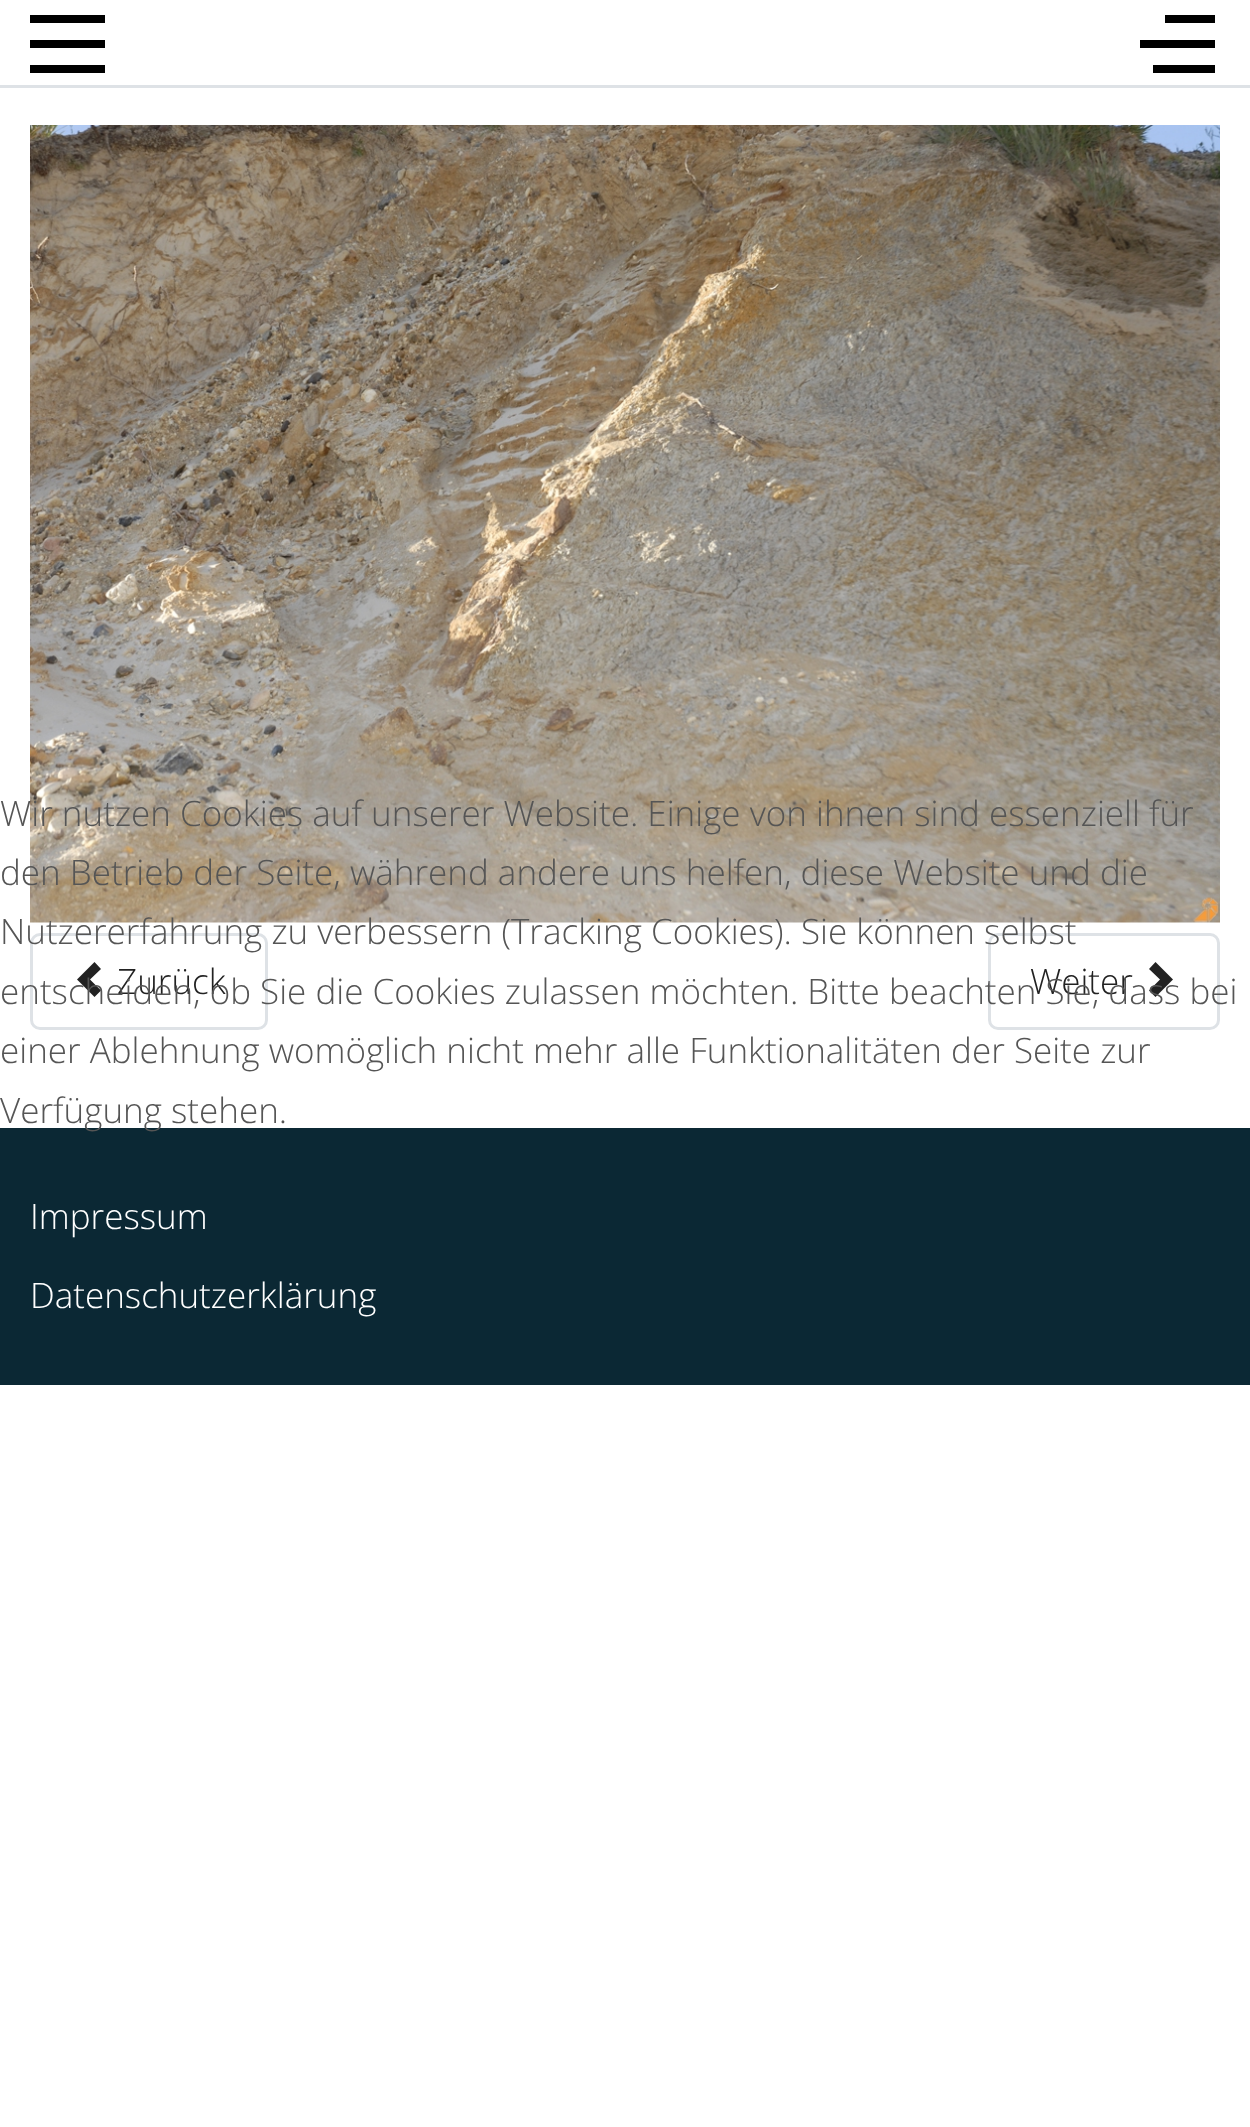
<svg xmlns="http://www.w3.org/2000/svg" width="1250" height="2127">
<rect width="100%" height="100%" fill="#fff"/>
<image x="30" y="125" width="1190" height="798" href="media/1.png"/>
<text x="0" y="826" style="font-family:Open Sans;font-size:35px;font-weight:300;fill:#555">Wir nutzen Cookies auf unserer Website. Einige von ihnen sind essenziell für</text>
<text x="0" y="885" style="font-family:Open Sans;font-size:35px;font-weight:300;fill:#555">den Betrieb der Seite, während andere uns helfen, diese Website und die</text>
<rect x="31.5" y="934.5" width="235" height="94" rx="8.5" fill="none" stroke="#dee2e6" stroke-width="3"/>
<rect x="989.5" y="934.5" width="229" height="94" rx="8.5" fill="none" stroke="#dee2e6" stroke-width="3"/>
<text x="0" y="944" style="font-family:Open Sans;font-size:35px;font-weight:300;fill:#555">Nutzererfahrung zu verbessern (Tracking Cookies). Sie können selbst</text>
<path d="M94.5 997l-17.5-17.5l17.5-17.5l6.5 7l-11 10.5l11 11z" fill="#222"/>
<text x="117" y="994" style="font-family:Open Sans;font-size:35px;font-weight:300;fill:#222">Zurück</text>
<text x="1030" y="994" style="font-family:Open Sans;font-size:35px;font-weight:300;fill:#222">Weiter</text>
<path d="M1155.5 962l17.5 17.5l-17.5 17.5l-6.5-6.5l11-11l-11-10.5z" fill="#222"/>
<text x="0" y="1004" style="font-family:Open Sans;font-size:35px;font-weight:300;fill:#555">entscheiden, ob Sie die Cookies zulassen möchten. Bitte beachten Sie, dass bei</text>
<text x="0" y="1063" style="font-family:Open Sans;font-size:35px;font-weight:300;fill:#555">einer Ablehnung womöglich nicht mehr alle Funktionalitäten der Seite zur</text>
<rect y="1128" width="1250" height="257" fill="#0b2834"/>
<text x="0" y="1123" style="font-family:Open Sans;font-size:35px;font-weight:300;fill:#555">Verfügung stehen.</text>
<rect y="85" width="1250" height="3" fill="#dee2e6"/>
<rect x="30" y="40" width="75" height="8" fill="#000"/>
<rect x="30" y="15" width="75" height="8" fill="#000"/>
<rect x="30" y="65" width="75" height="8" fill="#000"/>
<rect x="1140" y="40" width="75" height="8" fill="#000"/>
<rect x="1165" y="15" width="50" height="8" fill="#000"/>
<rect x="1153" y="65" width="62" height="8" fill="#000"/>
<text x="30" y="1229" style="font-family:Open Sans;font-size:35px;font-weight:300;fill:#fff">Impressum</text>
<text x="30" y="1308" style="font-family:Open Sans;font-size:35px;font-weight:300;fill:#fff">Datenschutzerklärung</text>
</svg>
